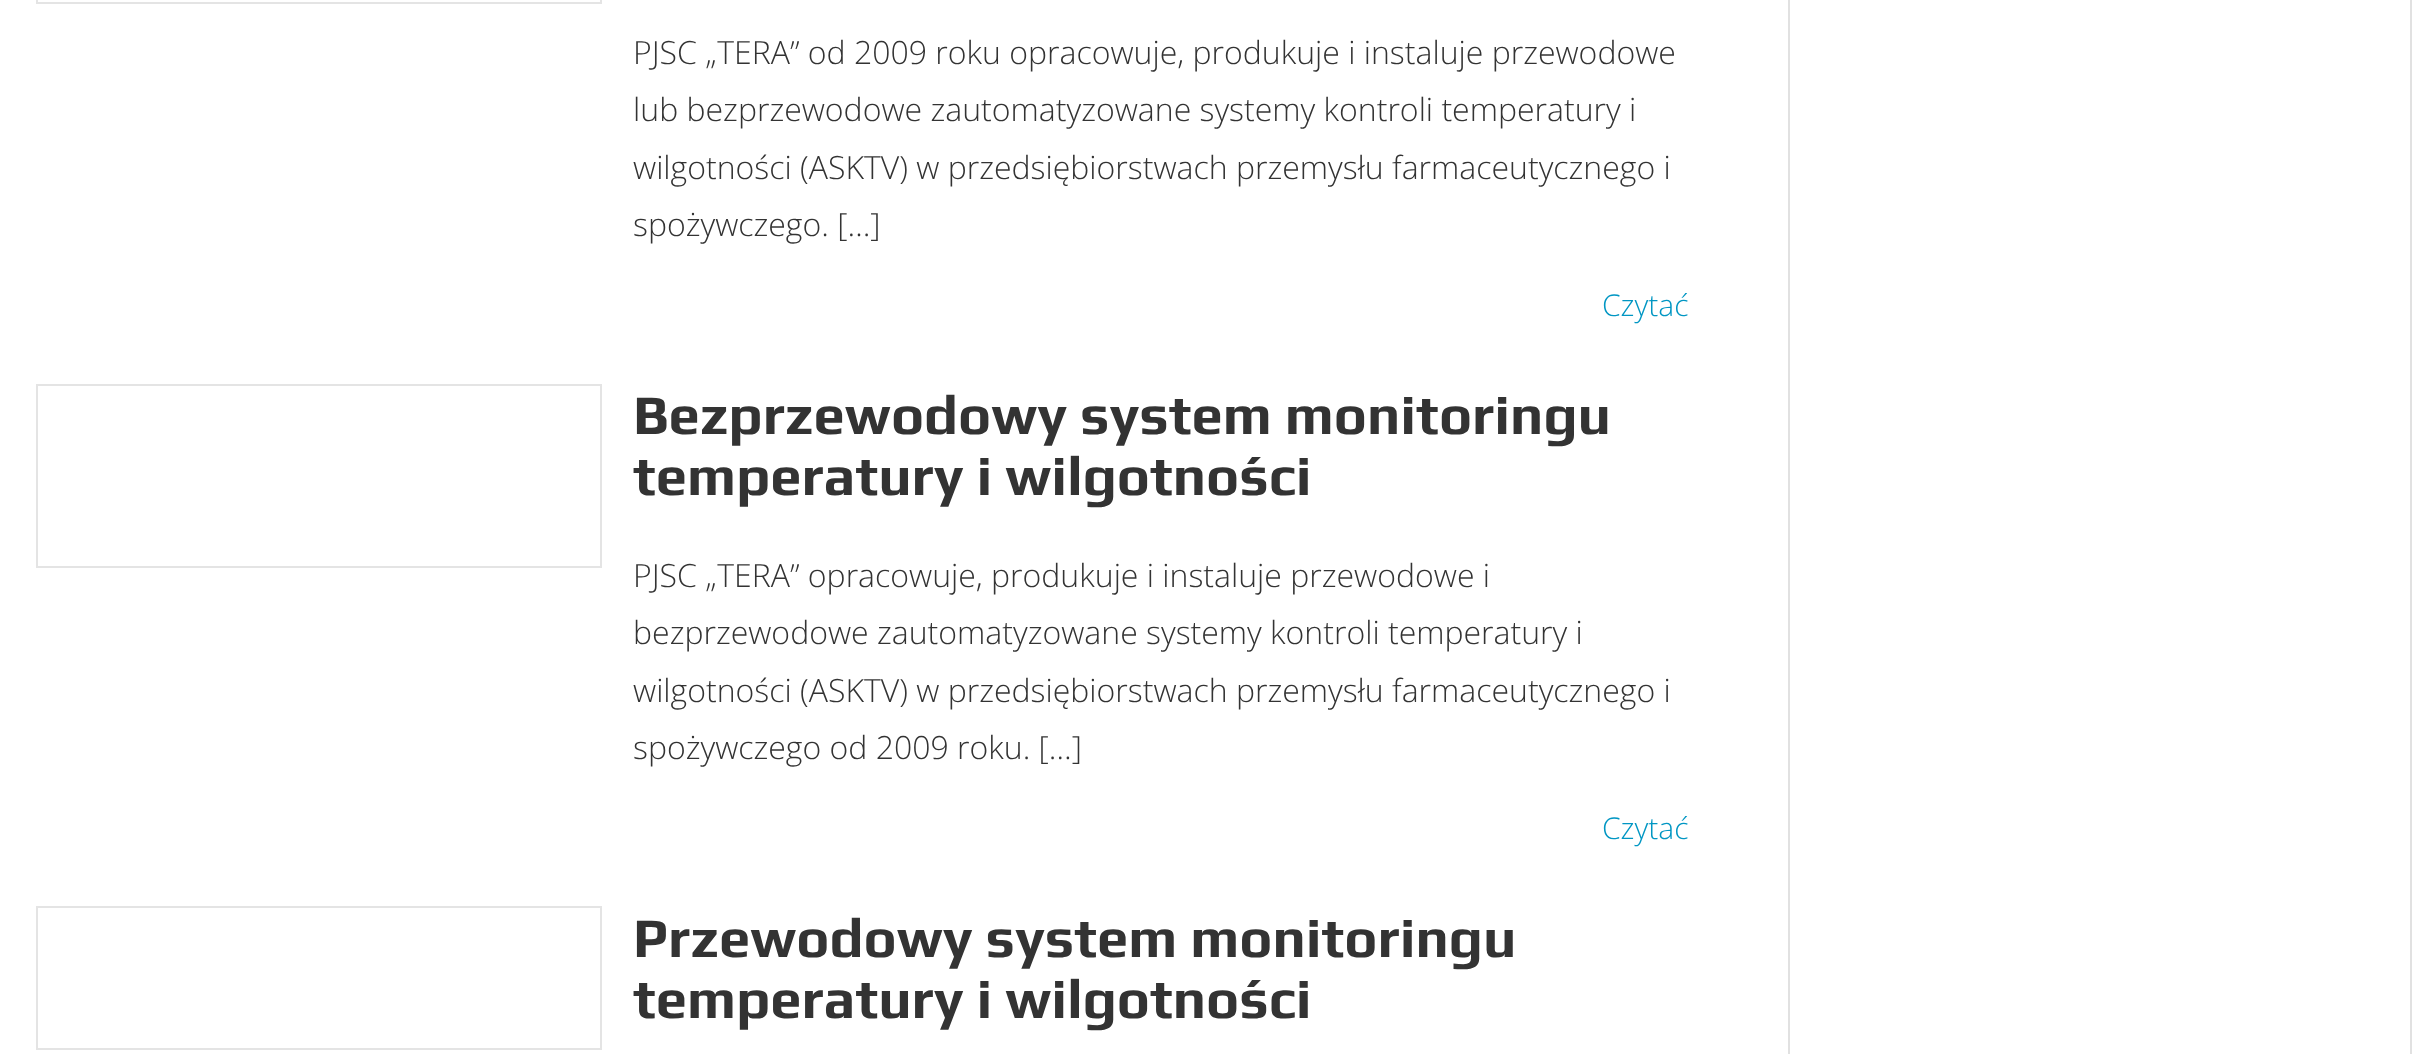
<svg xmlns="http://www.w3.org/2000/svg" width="2412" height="1054">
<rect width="100%" height="100%" fill="#fff"/>
<rect x="2410" width="2" height="1054" fill="#e1e1e1"/>
<rect x="1788" width="2" height="1054" fill="#e1e1e1"/>
<rect x="37" y="-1" width="564" height="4" fill="none" stroke="#e4e4e4" stroke-width="2"/>
<text x="633" y="64" style="font-family:Open Sans;font-size:32px;font-weight:300;fill:#333">PJSC „TERA” od 2009 roku opracowuje, produkuje i instaluje przewodowe</text>
<text x="633" y="121" style="font-family:Open Sans;font-size:32px;font-weight:300;fill:#333">lub bezprzewodowe zautomatyzowane systemy kontroli temperatury i</text>
<text x="633" y="179" style="font-family:Open Sans;font-size:32px;font-weight:300;fill:#333">wilgotności (ASKTV) w przedsiębiorstwach przemysłu farmaceutycznego i</text>
<text x="633" y="236" style="font-family:Open Sans;font-size:32px;font-weight:300;fill:#333">spożywczego. […]</text>
<text x="1602" y="316" style="font-family:Open Sans;font-size:30px;font-weight:300;fill:#0096c3">Czytać</text>
<rect x="37" y="385" width="564" height="182" fill="none" stroke="#e4e4e4" stroke-width="2"/>
<text x="633" y="434" style="font-family:Play;font-size:56px;font-weight:bold;fill:#333">Bezprzewodowy system monitoringu</text>
<text x="633" y="495" style="font-family:Play;font-size:56px;font-weight:bold;fill:#333">temperatury i wilgotności</text>
<text x="633" y="587" style="font-family:Open Sans;font-size:32px;font-weight:300;fill:#333">PJSC „TERA” opracowuje, produkuje i instaluje przewodowe i</text>
<text x="633" y="644" style="font-family:Open Sans;font-size:32px;font-weight:300;fill:#333">bezprzewodowe zautomatyzowane systemy kontroli temperatury i</text>
<text x="633" y="702" style="font-family:Open Sans;font-size:32px;font-weight:300;fill:#333">wilgotności (ASKTV) w przedsiębiorstwach przemysłu farmaceutycznego i</text>
<text x="633" y="759" style="font-family:Open Sans;font-size:32px;font-weight:300;fill:#333">spożywczego od 2009 roku. […]</text>
<text x="1602" y="839" style="font-family:Open Sans;font-size:30px;font-weight:300;fill:#0096c3">Czytać</text>
<rect x="37" y="907" width="564" height="142" fill="none" stroke="#e4e4e4" stroke-width="2"/>
<text x="633" y="957" style="font-family:Play;font-size:56px;font-weight:bold;fill:#333">Przewodowy system monitoringu</text>
<text x="633" y="1018" style="font-family:Play;font-size:56px;font-weight:bold;fill:#333">temperatury i wilgotności</text>
</svg>
